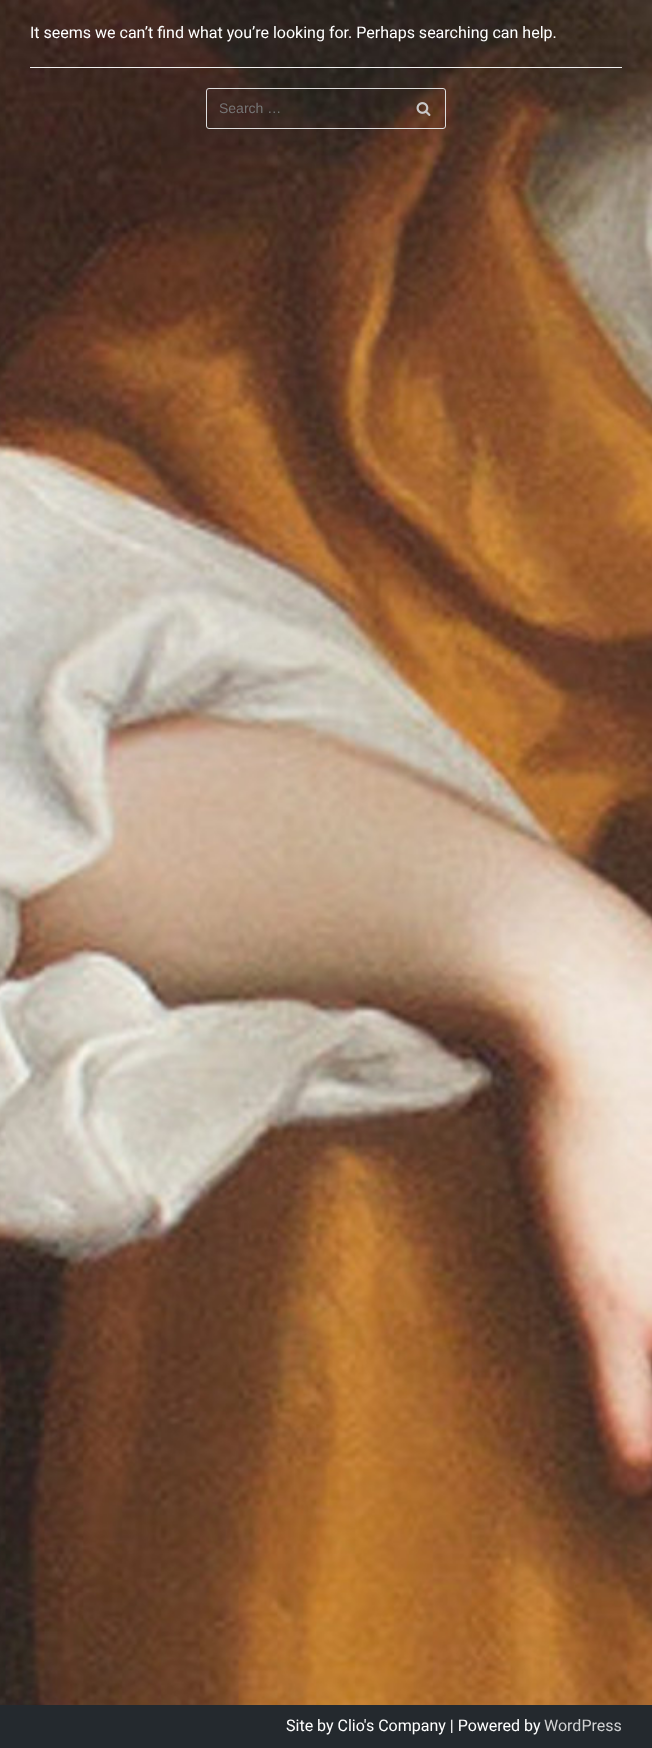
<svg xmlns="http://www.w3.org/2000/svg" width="652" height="1748">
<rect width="100%" height="100%" fill="#fff"/>
<image x="0" y="0" width="652" height="1705" href="media/1.png"/>
<text x="30" y="38" style="font-family:Roboto;font-size:16px;fill:#fff">It seems we can’t find what you’re looking for. Perhaps searching can help.</text>
<rect x="30" y="67" width="592" height="1" fill="#f0f0f0"/>
<rect x="206.5" y="88.5" width="239" height="40" rx="2.5" fill="none" stroke="#ddd"/>
<text x="219" y="113" style="font-family:Liberation Sans;font-size:14px;fill:#757575">Search …</text>
<image x="416" y="102" width="15" height="14" href="media/2.png"/>
<rect y="1705" width="652" height="43" fill="#24292e"/>
<text x="286" y="1731" style="font-family:Roboto;font-size:16px;fill:#fff">Site by Clio's Company | Powered by</text>
<text x="544" y="1731" style="font-family:Roboto;font-size:16px;fill:#d1d2d3">WordPress</text>
</svg>
